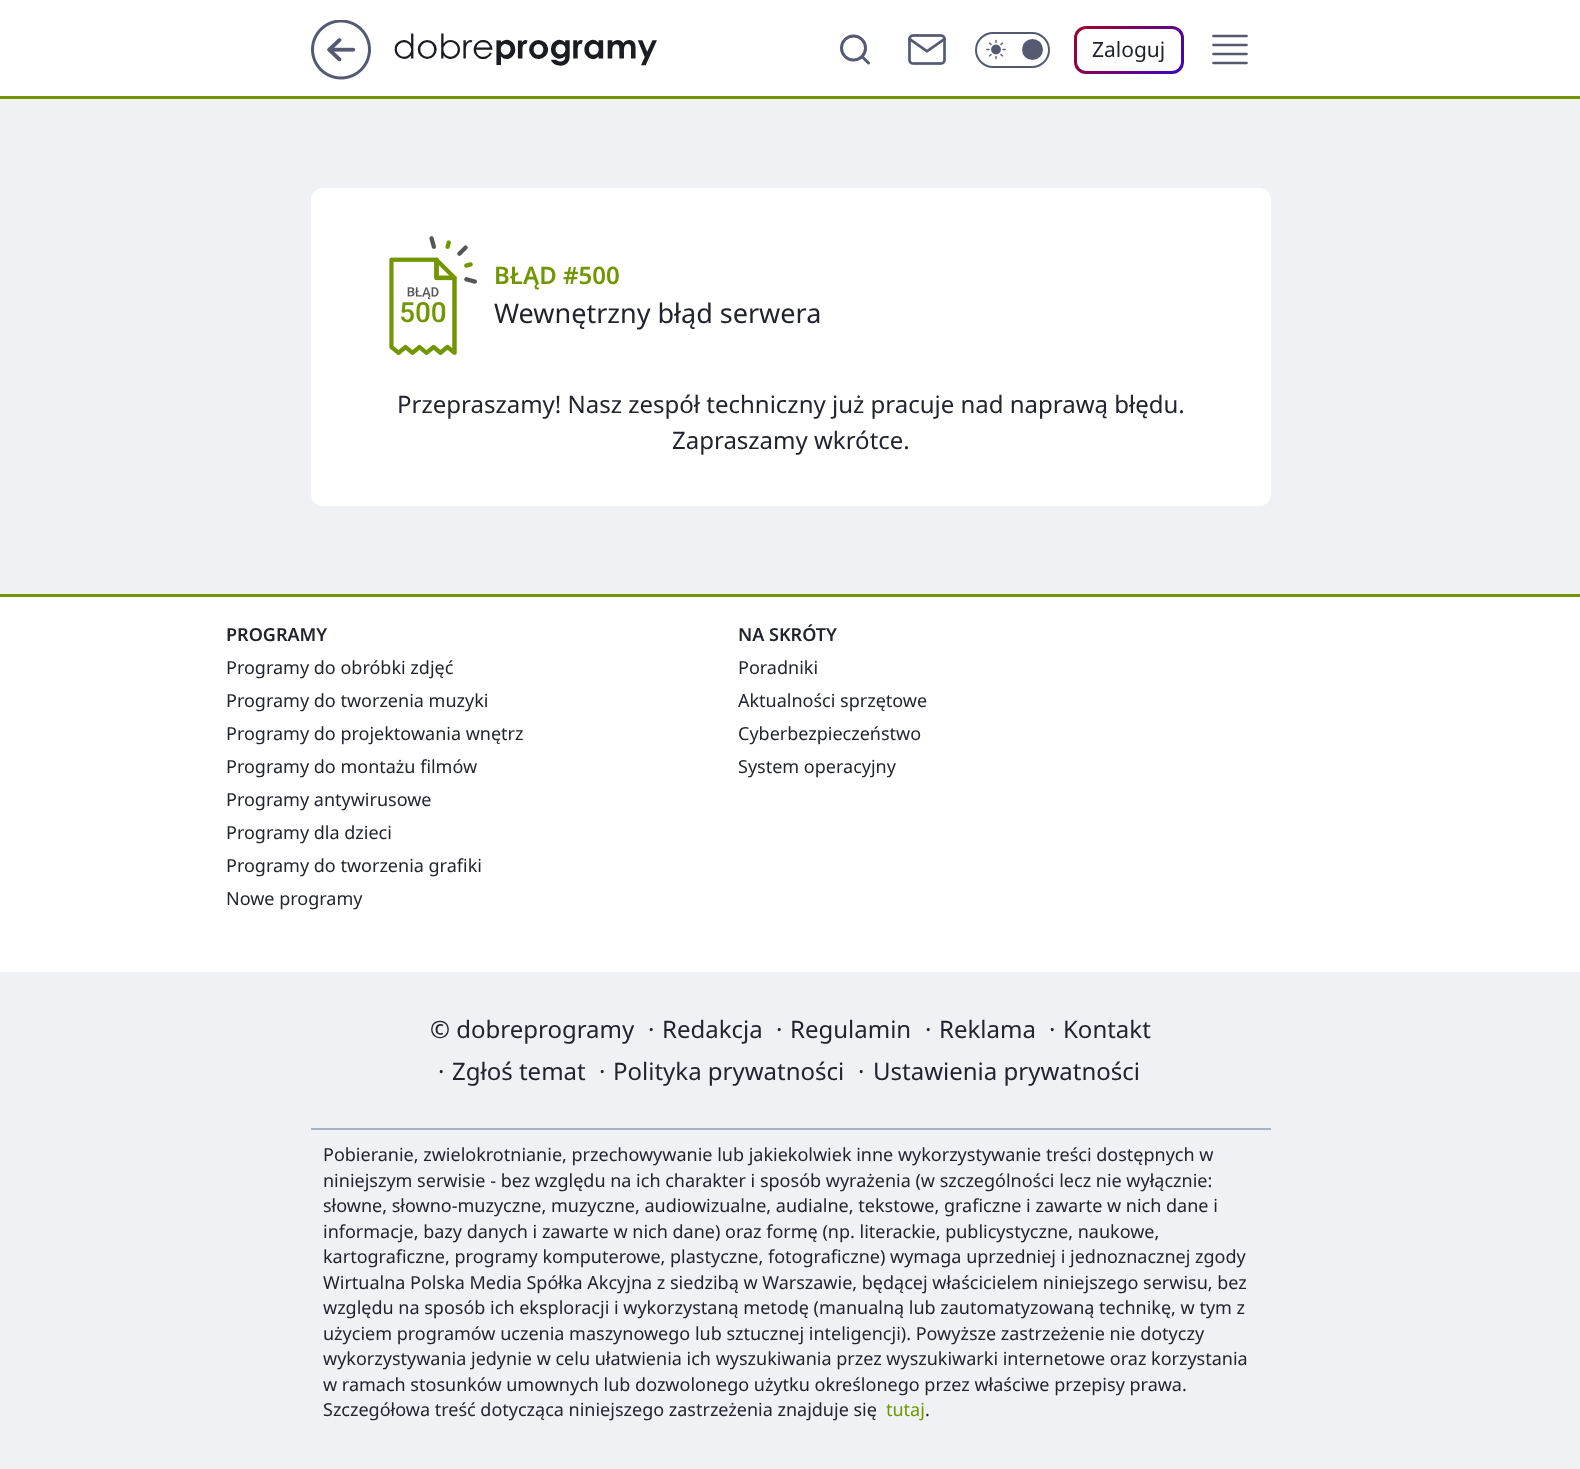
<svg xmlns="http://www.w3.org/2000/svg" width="1580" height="1469">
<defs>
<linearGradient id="g1" gradientUnits="userSpaceOnUse" x1="1087" y1="11" x2="1170" y2="88"><stop offset="0.15" stop-color="#9b0238"/><stop offset="0.91" stop-color="#4404ae"/></linearGradient>
</defs>
<rect width="100%" height="100%" fill="#eff1f5"/>
<rect width="1580" height="96" fill="#fff"/>
<image x="311" y="20" width="60" height="60" href="media/1.png"/>
<image x="394" y="33" width="263" height="33" href="media/2.png"/>
<circle cx="853.5" cy="48" r="12" fill="none" stroke="#555a72" stroke-width="3"/>
<path d="M868.5 63l-6.5-6.5" fill="none" stroke="#555a72" stroke-width="3" stroke-linecap="round" stroke-linejoin="round"/>
<image x="908" y="34" width="38" height="31" href="media/3.png"/>
<rect x="976" y="33" width="73" height="34" rx="17" fill="none" stroke="#555a72" stroke-width="2"/>
<image x="986" y="39" width="20" height="21" href="media/4.png"/>
<circle cx="1032.5" cy="49.5" r="10.5" fill="#555a72"/>
<rect x="1074" y="26" width="110" height="48" rx="12" fill="url(#g1)"/>
<rect x="1077" y="29" width="104" height="42" rx="9" fill="#fff"/>
<text x="1092" y="57" style="font-family:Noto Sans;font-size:21px;fill:#22242d">Zaloguj</text>
<path d="M1213.5 54h33m-33-9h33m-33-9h33m-33 27h33" fill="none" stroke="#555a72" stroke-width="2.7" stroke-linecap="round" stroke-linejoin="round"/>
<rect y="96" width="1580" height="3" fill="#729601"/>
<rect x="311" y="188" width="960" height="318" rx="12" fill="#fff"/>
<image x="389" y="236" width="88" height="119" href="media/5.png"/>
<text x="494" y="284" style="font-family:Noto Sans;font-size:24px;font-weight:600;fill:#729601">BŁĄD #500</text>
<text x="494" y="323" style="font-family:Noto Sans;font-size:27px;fill:#22242d">Wewnętrzny błąd serwera</text>
<text x="397" y="413" style="font-family:Noto Sans;font-size:24px;fill:#22242d">Przepraszamy! Nasz zespół techniczny już pracuje nad naprawą błędu.</text>
<text x="672" y="449" style="font-family:Noto Sans;font-size:24px;fill:#22242d">Zapraszamy wkrótce.</text>
<rect y="597" width="1580" height="375" fill="#fff"/>
<rect y="594" width="1580" height="3" fill="#729601"/>
<text x="226" y="641" style="font-family:Noto Sans;font-size:18px;font-weight:600;fill:#22242d">PROGRAMY</text>
<text x="226" y="674" style="font-family:Noto Sans;font-size:18px;fill:#22242d">Programy do obróbki zdjęć</text>
<text x="226" y="707" style="font-family:Noto Sans;font-size:18px;fill:#22242d">Programy do tworzenia muzyki</text>
<text x="226" y="740" style="font-family:Noto Sans;font-size:18px;fill:#22242d">Programy do projektowania wnętrz</text>
<text x="226" y="773" style="font-family:Noto Sans;font-size:18px;fill:#22242d">Programy do montażu filmów</text>
<text x="226" y="806" style="font-family:Noto Sans;font-size:18px;fill:#22242d">Programy antywirusowe</text>
<text x="226" y="839" style="font-family:Noto Sans;font-size:18px;fill:#22242d">Programy dla dzieci</text>
<text x="226" y="872" style="font-family:Noto Sans;font-size:18px;fill:#22242d">Programy do tworzenia grafiki</text>
<text x="226" y="905" style="font-family:Noto Sans;font-size:18px;fill:#22242d">Nowe programy</text>
<text x="738" y="641" style="font-family:Noto Sans;font-size:18px;font-weight:600;fill:#22242d">NA SKRÓTY</text>
<text x="738" y="674" style="font-family:Noto Sans;font-size:18px;fill:#22242d">Poradniki</text>
<text x="738" y="707" style="font-family:Noto Sans;font-size:18px;fill:#22242d">Aktualności sprzętowe</text>
<text x="738" y="740" style="font-family:Noto Sans;font-size:18px;fill:#22242d">Cyberbezpieczeństwo</text>
<text x="738" y="773" style="font-family:Noto Sans;font-size:18px;fill:#22242d">System operacyjny</text>
<text x="430" y="1038" style="font-family:Noto Sans;font-size:24px;fill:#22242d">© dobreprogramy</text>
<text x="648" y="1038" style="font-family:Noto Sans;font-size:24px;fill:#22242d">·</text>
<text x="662" y="1038" style="font-family:Noto Sans;font-size:24px;fill:#22242d">Redakcja</text>
<text x="776" y="1038" style="font-family:Noto Sans;font-size:24px;fill:#22242d">·</text>
<text x="790" y="1038" style="font-family:Noto Sans;font-size:24px;fill:#22242d">Regulamin</text>
<text x="925" y="1038" style="font-family:Noto Sans;font-size:24px;fill:#22242d">·</text>
<text x="939" y="1038" style="font-family:Noto Sans;font-size:24px;fill:#22242d">Reklama</text>
<text x="1049" y="1038" style="font-family:Noto Sans;font-size:24px;fill:#22242d">·</text>
<text x="1063" y="1038" style="font-family:Noto Sans;font-size:24px;fill:#22242d">Kontakt</text>
<text x="438" y="1080" style="font-family:Noto Sans;font-size:24px;fill:#22242d">·</text>
<text x="452" y="1080" style="font-family:Noto Sans;font-size:24px;fill:#22242d">Zgłoś temat</text>
<text x="599" y="1080" style="font-family:Noto Sans;font-size:24px;fill:#22242d">·</text>
<text x="613" y="1080" style="font-family:Noto Sans;font-size:24px;fill:#22242d">Polityka prywatności</text>
<text x="858" y="1080" style="font-family:Noto Sans;font-size:24px;fill:#22242d">·</text>
<text x="873" y="1080" style="font-family:Noto Sans;font-size:24px;fill:#22242d">Ustawienia prywatności</text>
<rect x="311" y="1128" width="960" height="2" fill="#a8b2c7"/>
<text x="323" y="1161" style="font-family:Noto Sans;font-size:18px;fill:#22242d">Pobieranie, zwielokrotnianie, przechowywanie lub jakiekolwiek inne wykorzystywanie treści dostępnych w</text>
<text x="323" y="1187" style="font-family:Noto Sans;font-size:18px;fill:#22242d">niniejszym serwisie - bez względu na ich charakter i sposób wyrażenia (w szczególności lecz nie wyłącznie:</text>
<text x="323" y="1212" style="font-family:Noto Sans;font-size:18px;fill:#22242d">słowne, słowno-muzyczne, muzyczne, audiowizualne, audialne, tekstowe, graficzne i zawarte w nich dane i</text>
<text x="323" y="1238" style="font-family:Noto Sans;font-size:18px;fill:#22242d">informacje, bazy danych i zawarte w nich dane) oraz formę (np. literackie, publicystyczne, naukowe,</text>
<text x="323" y="1263" style="font-family:Noto Sans;font-size:18px;fill:#22242d">kartograficzne, programy komputerowe, plastyczne, fotograficzne) wymaga uprzedniej i jednoznacznej zgody</text>
<text x="323" y="1289" style="font-family:Noto Sans;font-size:18px;fill:#22242d">Wirtualna Polska Media Spółka Akcyjna z siedzibą w Warszawie, będącej właścicielem niniejszego serwisu, bez</text>
<text x="323" y="1314" style="font-family:Noto Sans;font-size:18px;fill:#22242d">względu na sposób ich eksploracji i wykorzystaną metodę (manualną lub zautomatyzowaną technikę, w tym z</text>
<text x="323" y="1340" style="font-family:Noto Sans;font-size:18px;fill:#22242d">użyciem programów uczenia maszynowego lub sztucznej inteligencji). Powyższe zastrzeżenie nie dotyczy</text>
<text x="323" y="1365" style="font-family:Noto Sans;font-size:18px;fill:#22242d">wykorzystywania jedynie w celu ułatwienia ich wyszukiwania przez wyszukiwarki internetowe oraz korzystania</text>
<text x="323" y="1391" style="font-family:Noto Sans;font-size:18px;fill:#22242d">w ramach stosunków umownych lub dozwolonego użytku określonego przez właściwe przepisy prawa.</text>
<text x="323" y="1416" style="font-family:Noto Sans;font-size:18px;fill:#22242d">Szczegółowa treść dotycząca niniejszego zastrzeżenia znajduje się</text>
<text x="886" y="1416" style="font-family:Noto Sans;font-size:18px;fill:#729601">tutaj</text>
<text x="925" y="1416" style="font-family:Noto Sans;font-size:18px;fill:#22242d">.</text>
</svg>
